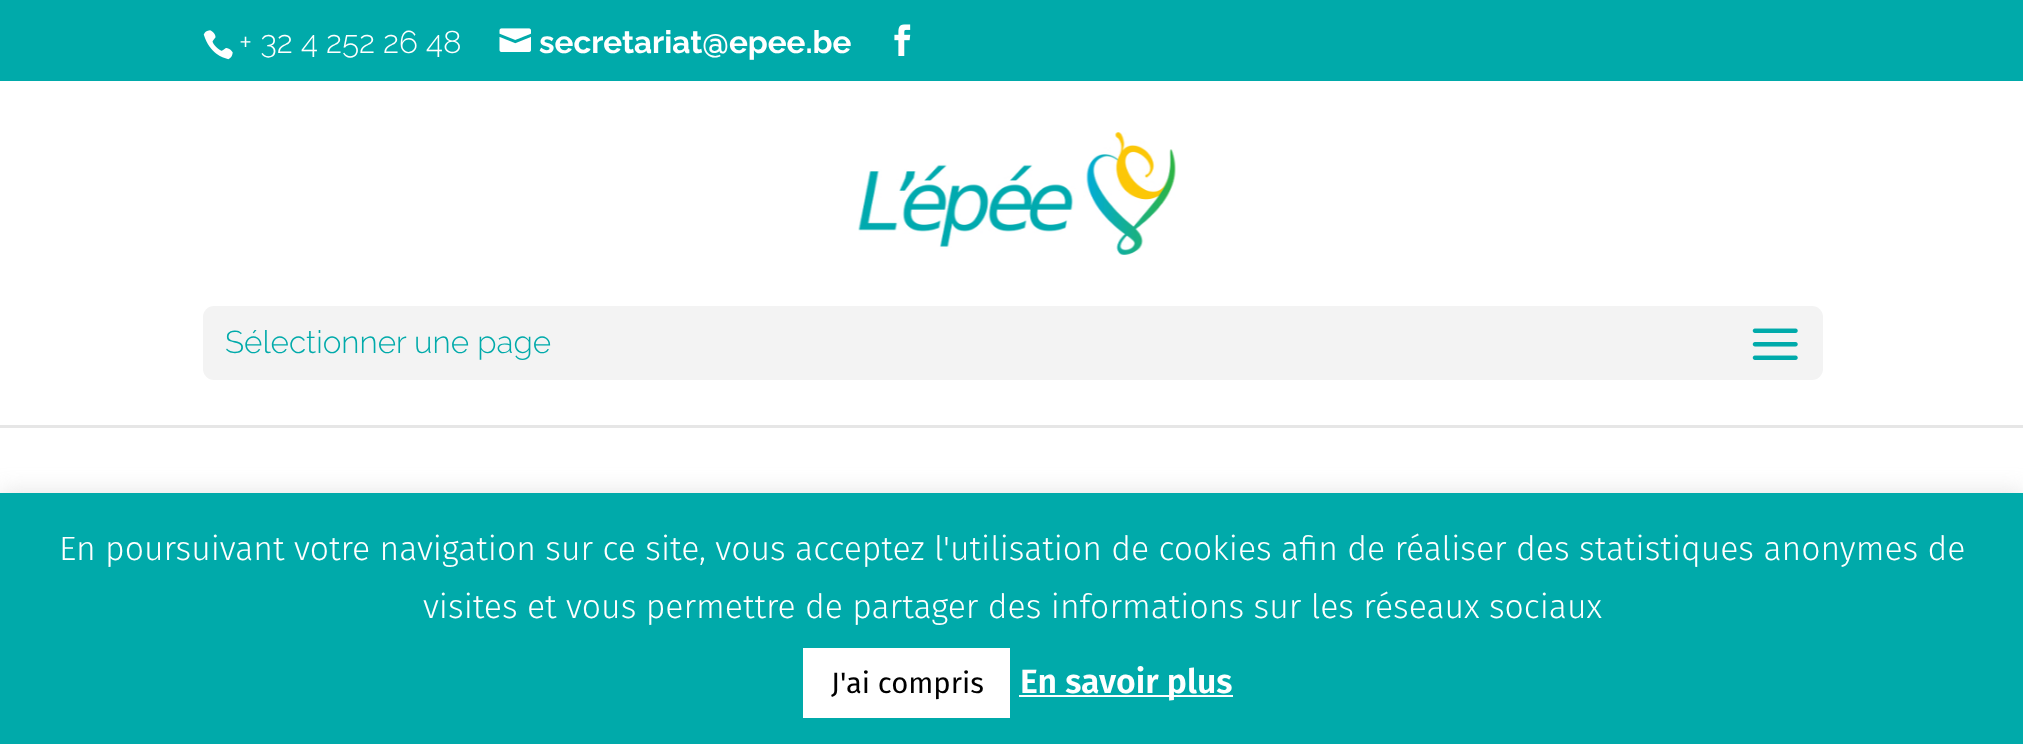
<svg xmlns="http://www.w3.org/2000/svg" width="2023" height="744">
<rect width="100%" height="100%" fill="#fff"/>
<rect width="2023" height="81" fill="#0aa"/>
<image x="203" y="30" width="30" height="30" href="media/1.png"/>
<text x="239" y="53" style="font-family:Raleway;font-size:31.5px;font-weight:300;fill:#fff">+ 32 4 252 26 48</text>
<image x="499" y="28" width="32" height="24" href="media/2.png"/>
<text x="539" y="53" style="font-family:Raleway;font-size:31.5px;font-weight:bold;fill:#fff">secretariat@epee.be</text>
<image x="894" y="24" width="17" height="32" href="media/3.png"/>
<rect y="425" width="2023" height="3" fill="#e6e6e6"/>
<image x="858" y="132" width="318" height="123" href="media/4.png"/>
<rect x="203" y="306" width="1620" height="74" rx="11" fill="#f3f3f3"/>
<text x="225" y="353" style="font-family:Raleway;font-size:31.5px;font-weight:300;fill:#0aa">Sélectionner une page</text>
<image x="1752" y="328" width="46" height="32" href="media/5.png"/>
<rect y="491" width="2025" height="252" fill="#acabab4d" filter="blur(11px)"/>
<rect y="493" width="2023" height="251" fill="#0aa"/>
<text x="59" y="560" style="font-family:Fira Sans;font-size:33.75px;font-weight:300;fill:#fff">En poursuivant votre navigation sur ce site, vous acceptez l'utilisation de cookies afin de réaliser des statistiques anonymes de</text>
<text x="423" y="618" style="font-family:Fira Sans;font-size:33.75px;font-weight:300;fill:#fff">visites et vous permettre de partager des informations sur les réseaux sociaux</text>
<rect x="803" y="648" width="207" height="70" fill="#fff"/>
<text x="831" y="693" style="font-family:Fira Sans;font-size:29.25px;fill:#000">J'ai compris</text>
<rect x="1019" y="695" width="214" height="2" fill="#fff"/>
<text x="1020" y="693" style="font-family:Fira Sans;font-size:33.75px;font-weight:600;fill:#fff">En savoir plus</text>
</svg>
